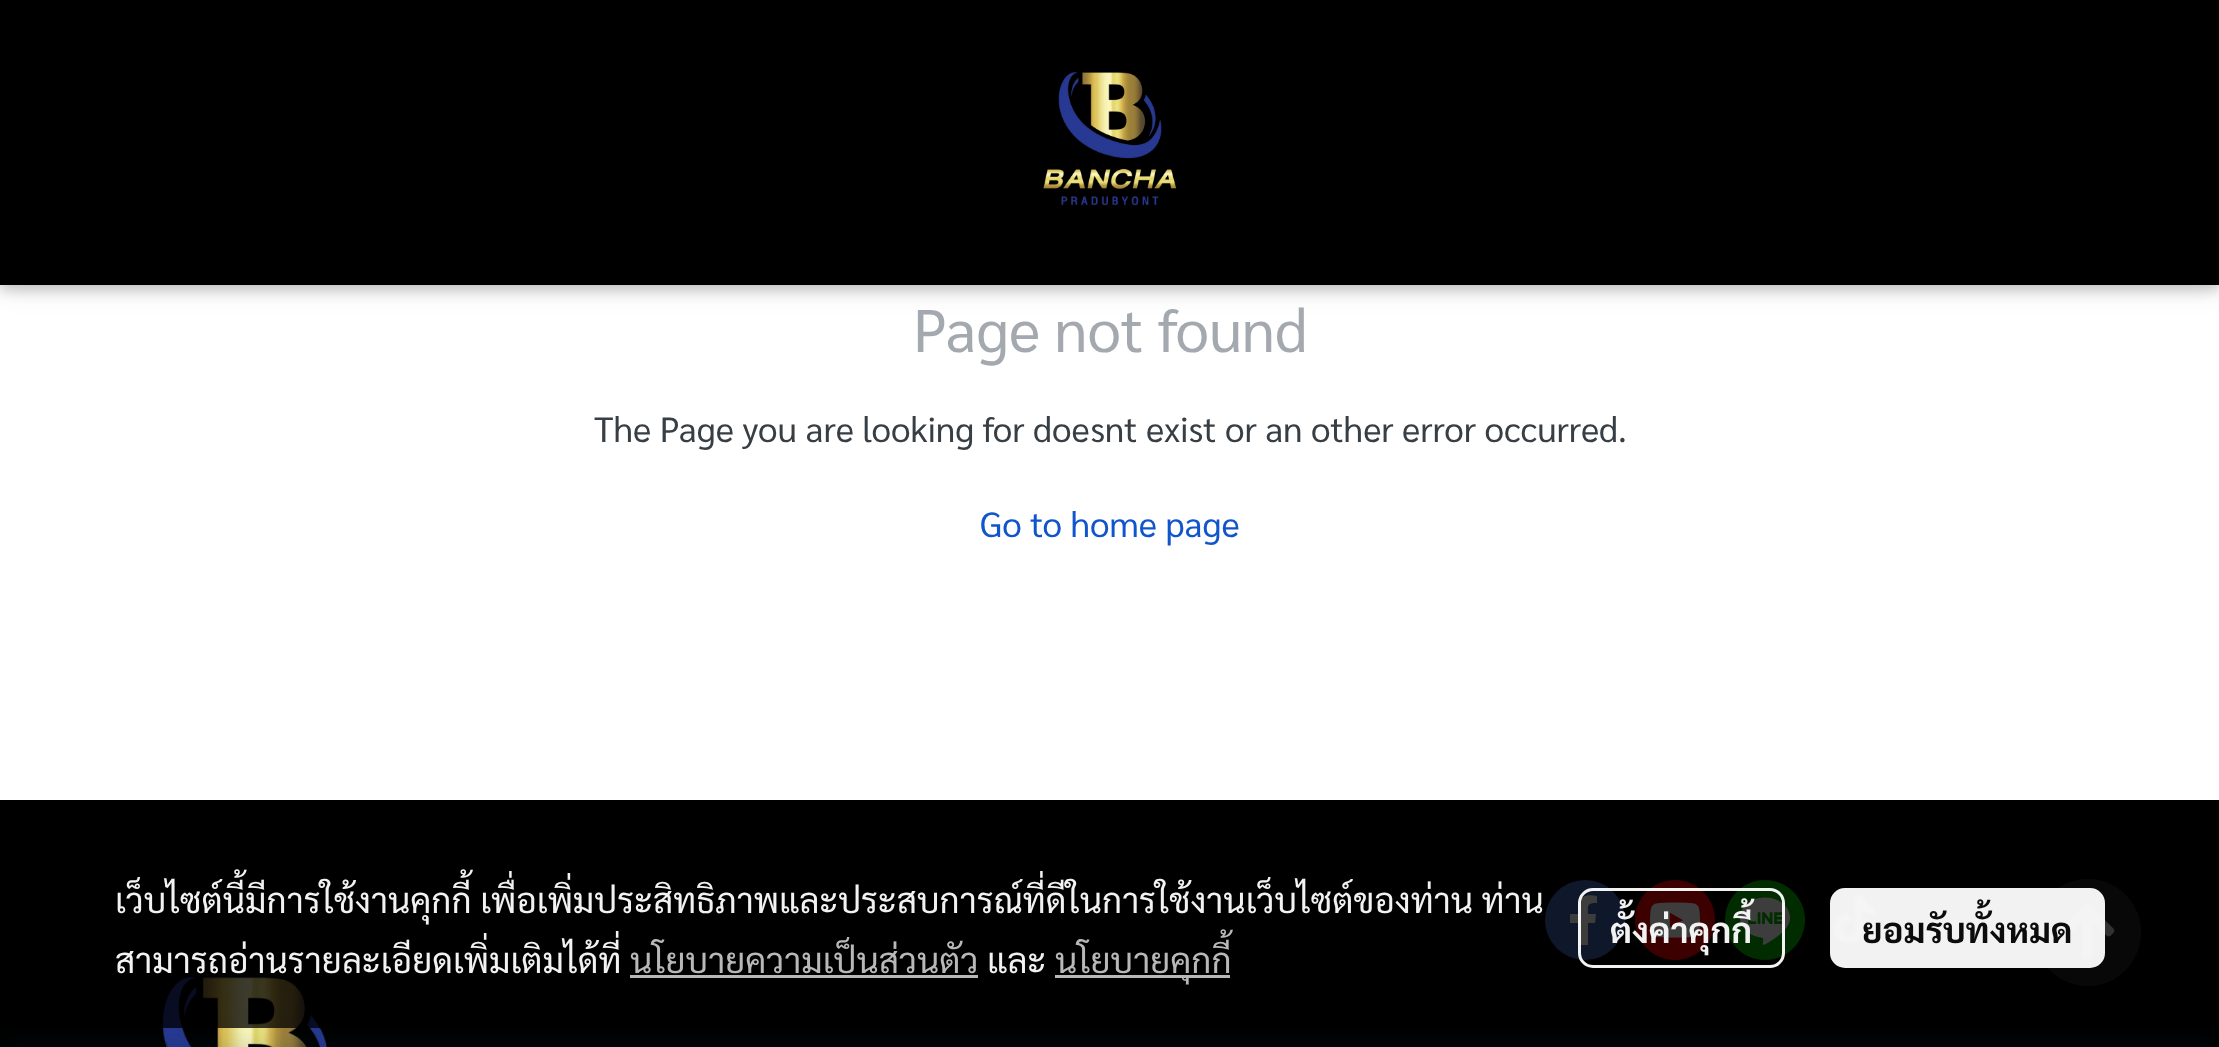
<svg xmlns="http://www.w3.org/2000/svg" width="2219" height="1047">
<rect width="100%" height="100%" fill="#fff"/>
<rect y="5" width="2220" height="285" fill="#0000001f" filter="blur(12.5px)"/>
<rect y="5" width="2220" height="285" fill="#00000029" filter="blur(6px)"/>
<rect width="2219" height="285" fill="#000"/>
<image x="1043" y="72" width="134" height="134" href="media/1.png"/>
<text x="913" y="352" style="font-family:Sarabun;font-size:60px;fill:#a4a9af">Page not found</text>
<text x="594" y="442" style="font-family:Sarabun;font-size:35px;fill:#373e44">The Page you are looking for doesnt exist or an other error occurred.</text>
<text x="980" y="537" style="font-family:Sarabun;font-size:35px;fill:#15c">Go to home page</text>
<rect y="800" width="2219" height="247" fill="#000"/>
<path d="M2088 879c-30 0-54 24-54 53c0 30 24 54 54 54c29 0 53-24 53-54c0-29-24-53-53-53z" fill="#1e1d1d"/>
<image x="2060" y="903" width="55" height="56" href="media/2.png"/>
<circle cx="1585" cy="920" r="40" fill="#4267b2"/>
<path d="M1595 923h-7v22h-10v-22h-8v-9h8v-10c2-9 11-10 19-8v7c-10 0-9 2-9 11h8z" fill="#fff"/>
<image x="1635" y="880" width="80" height="80" href="media/3.png"/>
<image x="1725" y="880" width="80" height="80" href="media/4.png"/>
<image x="1832" y="895" width="45" height="50" href="media/5.png"/>
<image x="162" y="976" width="165" height="71" href="media/6.png"/>
<path d="M2088 879c-30 0-54 24-54 53c0 30 24 54 54 54c29 0 53-24 53-54c0-29-24-53-53-53z" fill="#2b2a2ab3"/>
<image x="2060" y="903" width="55" height="56" href="media/7.png"/>
<rect y="1043" width="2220" height="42" fill="#00354a26" filter="blur(12.5px)"/>
<rect y="828" width="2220" height="200" rx="20" fill="#000000c2"/>
<text x="115" y="913" style="font-family:Sarabun;font-size:35px;fill:#f2f2f2">เว็บไซต์นี้มีการใช้งานคุกกี้ เพื่อเพิ่มประสิทธิภาพและประสบการณ์ที่ดีในการใช้งานเว็บไซต์ของท่าน ท่าน</text>
<text x="115" y="973" style="font-family:Sarabun;font-size:35px;fill:#f2f2f2">สามารถอ่านรายละเอียดเพิ่มเติมได้ที่</text>
<text x="630" y="973" style="font-family:Sarabun;font-size:35px;fill:#b8b8b8">นโยบายความเป็นส่วนตัว</text>
<text x="987" y="973" style="font-family:Sarabun;font-size:35px;fill:#f2f2f2">และ</text>
<rect x="630" y="975" width="348" height="3" fill="#b8b8b8"/>
<rect x="1055" y="975" width="175" height="3" fill="#b8b8b8"/>
<text x="1055" y="973" style="font-family:Sarabun;font-size:35px;fill:#b8b8b8">นโยบายคุกกี้</text>
<rect x="1579.5" y="889.5" width="204" height="77" rx="13.5" fill="none" stroke="#fffffff2" stroke-width="3"/>
<text x="1610" y="943" style="font-family:Sarabun;font-size:35px;font-weight:bold;fill:#f2f2f2">ตั้งค่าคุกกี้</text>
<rect x="1830" y="888" width="275" height="80" rx="15" fill="#fffffff2"/>
<text x="1862" y="943" style="font-family:Sarabun;font-size:35px;font-weight:bold;fill:#0c0c0c">ยอมรับทั้งหมด</text>
</svg>
